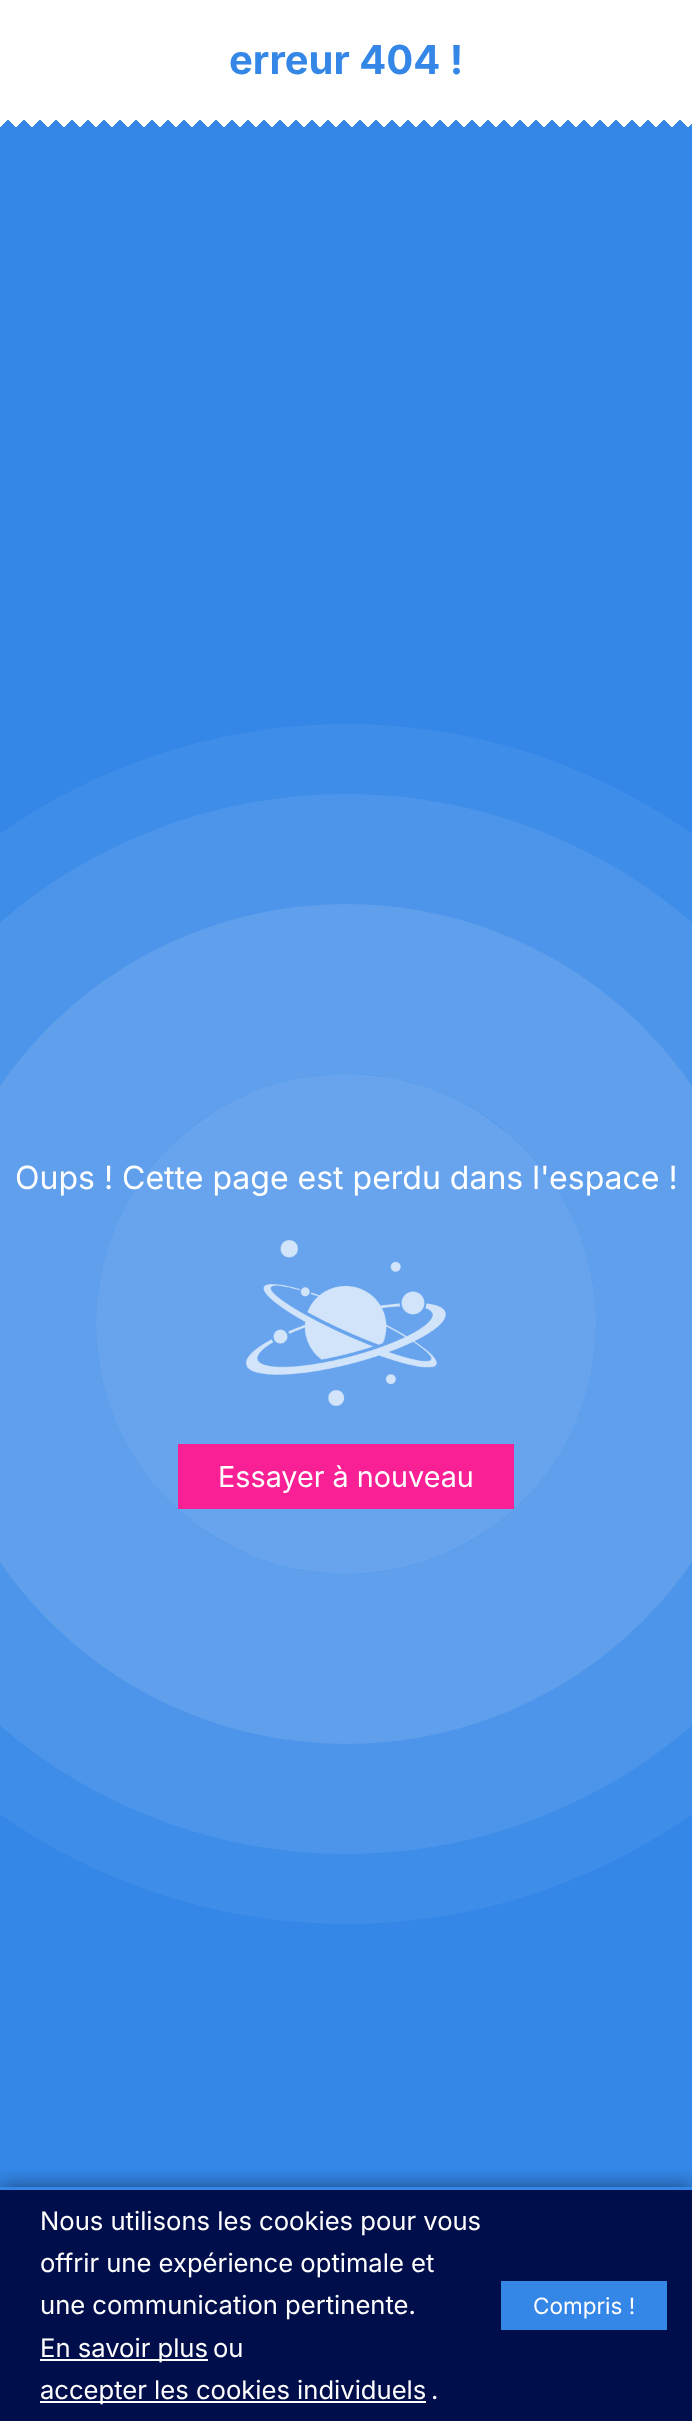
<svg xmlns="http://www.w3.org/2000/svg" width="692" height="2421">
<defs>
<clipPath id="clip1"><rect x="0" y="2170" width="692" height="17"/></clipPath>
</defs>
<rect width="100%" height="100%" fill="#3486e7"/>
<rect width="692" height="120" fill="#fff"/>
<text x="229" y="74" style="font-family:Inter;font-size:40px;font-weight:bold;fill:#3486e7">erreur 404 !</text>
<image x="9" y="120" width="679" height="7" href="media/1.png"/>
<image x="0" y="120" width="692" height="7" href="media/2.png"/>
<circle cx="346" cy="1324" r="425" fill="none" stroke="#3e8de9" stroke-width="350"/>
<circle cx="346" cy="1324" r="390" fill="none" stroke="#ffffff14" stroke-width="280"/>
<circle cx="346" cy="1324" r="335" fill="none" stroke="#ffffff1a" stroke-width="170"/>
<circle cx="346" cy="1324" r="250" fill="#ffffff40"/>
<image x="246" y="1240" width="200" height="166" href="media/3.png"/>
<text x="15" y="1189" style="font-family:Inter;font-size:32px;fill:#fff">Oups ! Cette page est perdu dans l'espace !</text>
<rect x="178" y="1444" width="336" height="65" fill="#f82094"/>
<text x="218" y="1487" style="font-family:Inter;font-size:28.75px;fill:#fff">Essayer à nouveau</text>
<g clip-path="url(#clip1)">
<rect y="2187" width="692" height="234" fill="#00000080" filter="blur(10px)"/>
</g>
<rect y="2190" width="692" height="231" fill="#000f4b"/>
<text x="40" y="2230" style="font-family:Inter;font-size:25.6px;fill:#fff">Nous utilisons les cookies pour vous</text>
<text x="40" y="2272" style="font-family:Inter;font-size:25.6px;fill:#fff">offrir une expérience optimale et</text>
<text x="40" y="2314" style="font-family:Inter;font-size:25.6px;fill:#fff">une communication pertinente.</text>
<rect x="40" y="2359" width="168" height="2" fill="#fff"/>
<text x="40" y="2357" style="font-family:Inter;font-size:25.6px;fill:#fff">En savoir plus</text>
<text x="213" y="2357" style="font-family:Inter;font-size:25.6px;fill:#fff">ou</text>
<rect x="40" y="2401" width="386" height="2" fill="#fff"/>
<text x="40" y="2399" style="font-family:Inter;font-size:25.6px;fill:#fff">accepter les cookies individuels</text>
<text x="431" y="2399" style="font-family:Inter;font-size:25.6px;fill:#fff">.</text>
<rect x="501" y="2281" width="166" height="49" fill="#3486e7"/>
<text x="533" y="2314" style="font-family:Inter;font-size:22.5px;fill:#fff">Compris !</text>
</svg>
